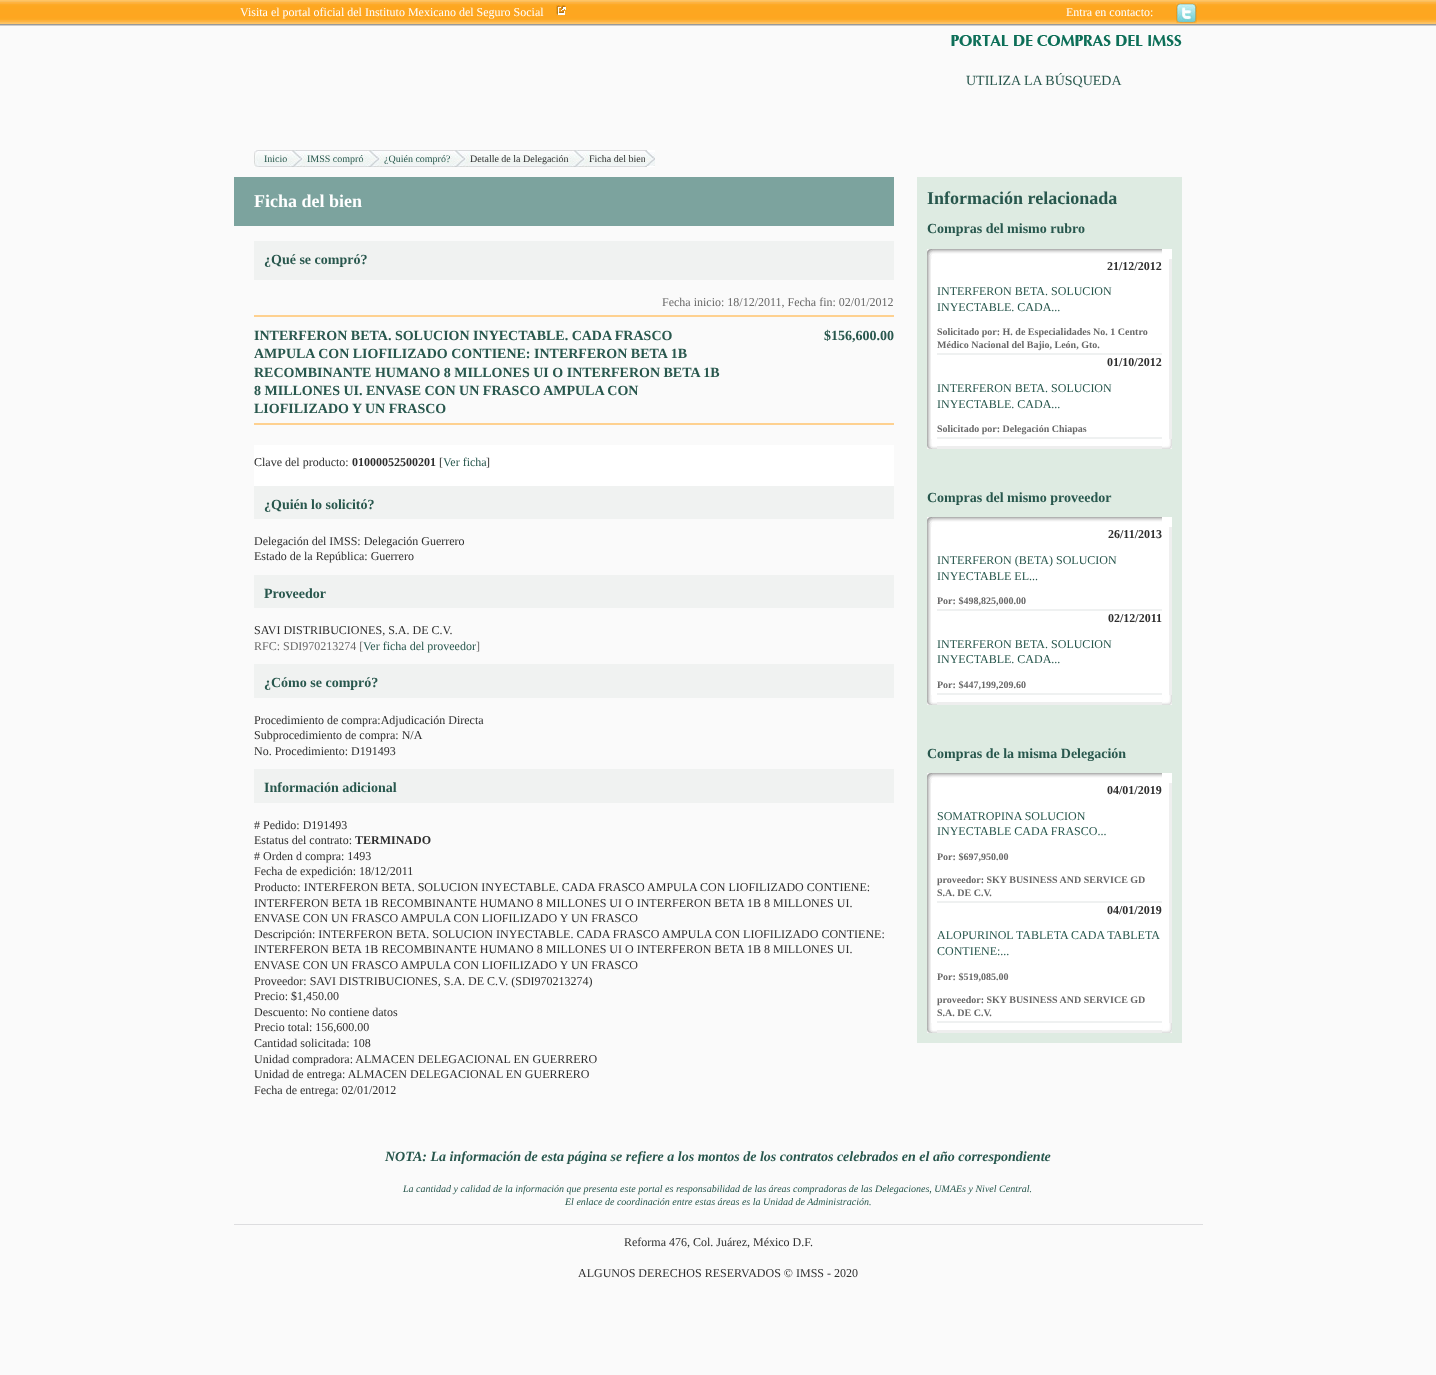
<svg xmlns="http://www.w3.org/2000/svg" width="1436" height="1375">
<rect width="100%" height="100%" fill="#fafafa"/>
<image x="0" y="0" width="1436" height="26" href="media/1.png"/>
<text x="240" y="16" style="font-family:Liberation Serif;font-size:12px;fill:#fff">Visita el portal oficial del Instituto Mexicano del Seguro Social</text>
<image x="556" y="5" width="11" height="11" href="media/2.png"/>
<text x="1066" y="16" style="font-family:Liberation Serif;font-size:12px;fill:#fff">Entra en contacto:</text>
<image x="1176" y="3" width="21" height="20" href="media/3.png"/>
<image x="951" y="35" width="231" height="11" href="media/4.png"/>
<text x="966" y="85" style="font-family:Liberation Serif;font-size:14px;fill:#28574d">UTILIZA LA BÚSQUEDA</text>
<image x="254" y="150" width="10" height="17" href="media/5.png"/>
<image x="264" y="150" width="23" height="17" href="media/6.png"/>
<text x="264" y="162" style="font-family:Liberation Serif;font-size:10px;fill:#28574d">Inicio</text>
<image x="287" y="150" width="20" height="17" href="media/7.png"/>
<image x="307" y="150" width="57" height="17" href="media/8.png"/>
<text x="307" y="162" style="font-family:Liberation Serif;font-size:10px;fill:#28574d">IMSS compró</text>
<image x="364" y="150" width="20" height="17" href="media/7.png"/>
<image x="384" y="150" width="66" height="17" href="media/9.png"/>
<text x="384" y="162" style="font-family:Liberation Serif;font-size:10px;fill:#28574d">¿Quién compró?</text>
<image x="450" y="150" width="20" height="17" href="media/7.png"/>
<image x="470" y="150" width="99" height="17" href="media/10.png"/>
<text x="470" y="162" style="font-family:Liberation Serif;font-size:10px;fill:#2e2e2e">Detalle de la Delegación</text>
<image x="569" y="150" width="20" height="17" href="media/7.png"/>
<image x="589" y="150" width="56" height="17" href="media/11.png"/>
<text x="589" y="162" style="font-family:Liberation Serif;font-size:10px;fill:#2e2e2e">Ficha del bien</text>
<image x="645" y="150" width="10" height="17" href="media/12.png"/>
<rect x="234" y="177" width="660" height="49" fill="#7ca39e"/>
<text x="254" y="207" style="font-family:Liberation Serif;font-size:18px;font-weight:bold;fill:#fff">Ficha del bien</text>
<rect x="254" y="241" width="640" height="39" fill="#f0f2f1"/>
<text x="264" y="264" style="font-family:Liberation Serif;font-size:14px;font-weight:bold;fill:#28574d">¿Qué se compró?</text>
<text x="662" y="306" style="font-family:Liberation Serif;font-size:12px;fill:#696969">Fecha inicio: 18/12/2011, Fecha fin: 02/01/2012</text>
<rect x="254" y="315" width="640" height="2" fill="#fed190"/>
<text x="254" y="340" style="font-family:Liberation Serif;font-size:14px;font-weight:bold;fill:#28574d">INTERFERON BETA. SOLUCION INYECTABLE. CADA FRASCO</text>
<text x="254" y="358" style="font-family:Liberation Serif;font-size:14px;font-weight:bold;fill:#28574d">AMPULA CON LIOFILIZADO CONTIENE: INTERFERON BETA 1B</text>
<text x="254" y="377" style="font-family:Liberation Serif;font-size:14px;font-weight:bold;fill:#28574d">RECOMBINANTE HUMANO 8 MILLONES UI O INTERFERON BETA 1B</text>
<text x="254" y="395" style="font-family:Liberation Serif;font-size:14px;font-weight:bold;fill:#28574d">8 MILLONES UI. ENVASE CON UN FRASCO AMPULA CON</text>
<text x="254" y="413" style="font-family:Liberation Serif;font-size:14px;font-weight:bold;fill:#28574d">LIOFILIZADO Y UN FRASCO</text>
<text x="824" y="340" style="font-family:Liberation Serif;font-size:14px;font-weight:bold;fill:#28574d">$156,600.00</text>
<rect x="254" y="423" width="640" height="2" fill="#fed190"/>
<rect x="254" y="445" width="640" height="41" fill="#fff"/>
<text x="254" y="466" style="font-family:Liberation Serif;font-size:12px;fill:#2e2e2e">Clave del producto:</text>
<text x="352" y="466" style="font-family:Liberation Serif;font-size:12px;font-weight:bold;fill:#2e2e2e">01000052500201</text>
<text x="439" y="466" style="font-family:Liberation Serif;font-size:12px;fill:#2e2e2e">[</text>
<text x="443" y="466" style="font-family:Liberation Serif;font-size:12px;fill:#28574d">Ver ficha</text>
<text x="486" y="466" style="font-family:Liberation Serif;font-size:12px;fill:#2e2e2e">]</text>
<rect x="254" y="486" width="640" height="33" fill="#f0f2f1"/>
<text x="264" y="509" style="font-family:Liberation Serif;font-size:14px;font-weight:bold;fill:#28574d">¿Quién lo solicitó?</text>
<text x="254" y="545" style="font-family:Liberation Serif;font-size:12px;fill:#2e2e2e">Delegación del IMSS: Delegación Guerrero</text>
<text x="254" y="560" style="font-family:Liberation Serif;font-size:12px;fill:#2e2e2e">Estado de la República: Guerrero</text>
<rect x="254" y="575" width="640" height="33" fill="#f0f2f1"/>
<text x="264" y="598" style="font-family:Liberation Serif;font-size:14px;font-weight:bold;fill:#28574d">Proveedor</text>
<text x="254" y="634" style="font-family:Liberation Serif;font-size:12px;fill:#2e2e2e">SAVI DISTRIBUCIONES, S.A. DE C.V.</text>
<text x="254" y="650" style="font-family:Liberation Serif;font-size:12px;fill:#696969">RFC: SDI970213274 [</text>
<text x="363" y="650" style="font-family:Liberation Serif;font-size:12px;fill:#28574d">Ver ficha del proveedor</text>
<text x="476" y="650" style="font-family:Liberation Serif;font-size:12px;fill:#696969">]</text>
<rect x="254" y="664" width="640" height="34" fill="#f0f2f1"/>
<text x="264" y="687" style="font-family:Liberation Serif;font-size:14px;font-weight:bold;fill:#28574d">¿Cómo se compró?</text>
<text x="254" y="724" style="font-family:Liberation Serif;font-size:12px;fill:#2e2e2e">Procedimiento de compra:Adjudicación Directa</text>
<text x="254" y="739" style="font-family:Liberation Serif;font-size:12px;fill:#2e2e2e">Subprocedimiento de compra: N/A</text>
<text x="254" y="755" style="font-family:Liberation Serif;font-size:12px;fill:#2e2e2e">No. Procedimiento: D191493</text>
<rect x="254" y="769" width="640" height="34" fill="#f0f2f1"/>
<text x="264" y="792" style="font-family:Liberation Serif;font-size:14px;font-weight:bold;fill:#28574d">Información adicional</text>
<text x="254" y="829" style="font-family:Liberation Serif;font-size:12px;fill:#2e2e2e"># Pedido: D191493</text>
<text x="254" y="844" style="font-family:Liberation Serif;font-size:12px;fill:#2e2e2e">Estatus del contrato:</text>
<text x="355" y="844" style="font-family:Liberation Serif;font-size:12px;font-weight:bold;fill:#2e2e2e">TERMINADO</text>
<text x="254" y="860" style="font-family:Liberation Serif;font-size:12px;fill:#2e2e2e"># Orden d compra: 1493</text>
<text x="254" y="875" style="font-family:Liberation Serif;font-size:12px;fill:#2e2e2e">Fecha de expedición: 18/12/2011</text>
<text x="254" y="891" style="font-family:Liberation Serif;font-size:12px;fill:#2e2e2e">Producto: INTERFERON BETA. SOLUCION INYECTABLE. CADA FRASCO AMPULA CON LIOFILIZADO CONTIENE:</text>
<text x="254" y="907" style="font-family:Liberation Serif;font-size:12px;fill:#2e2e2e">INTERFERON BETA 1B RECOMBINANTE HUMANO 8 MILLONES UI O INTERFERON BETA 1B 8 MILLONES UI.</text>
<text x="254" y="922" style="font-family:Liberation Serif;font-size:12px;fill:#2e2e2e">ENVASE CON UN FRASCO AMPULA CON LIOFILIZADO Y UN FRASCO</text>
<text x="254" y="938" style="font-family:Liberation Serif;font-size:12px;fill:#2e2e2e">Descripción: INTERFERON BETA. SOLUCION INYECTABLE. CADA FRASCO AMPULA CON LIOFILIZADO CONTIENE:</text>
<text x="254" y="953" style="font-family:Liberation Serif;font-size:12px;fill:#2e2e2e">INTERFERON BETA 1B RECOMBINANTE HUMANO 8 MILLONES UI O INTERFERON BETA 1B 8 MILLONES UI.</text>
<text x="254" y="969" style="font-family:Liberation Serif;font-size:12px;fill:#2e2e2e">ENVASE CON UN FRASCO AMPULA CON LIOFILIZADO Y UN FRASCO</text>
<text x="254" y="985" style="font-family:Liberation Serif;font-size:12px;fill:#2e2e2e">Proveedor: SAVI DISTRIBUCIONES, S.A. DE C.V. (SDI970213274)</text>
<text x="254" y="1000" style="font-family:Liberation Serif;font-size:12px;fill:#2e2e2e">Precio: $1,450.00</text>
<text x="254" y="1016" style="font-family:Liberation Serif;font-size:12px;fill:#2e2e2e">Descuento: No contiene datos</text>
<text x="254" y="1031" style="font-family:Liberation Serif;font-size:12px;fill:#2e2e2e">Precio total: 156,600.00</text>
<text x="254" y="1047" style="font-family:Liberation Serif;font-size:12px;fill:#2e2e2e">Cantidad solicitada: 108</text>
<text x="254" y="1063" style="font-family:Liberation Serif;font-size:12px;fill:#2e2e2e">Unidad compradora: ALMACEN DELEGACIONAL EN GUERRERO</text>
<text x="254" y="1078" style="font-family:Liberation Serif;font-size:12px;fill:#2e2e2e">Unidad de entrega: ALMACEN DELEGACIONAL EN GUERRERO</text>
<text x="254" y="1094" style="font-family:Liberation Serif;font-size:12px;fill:#2e2e2e">Fecha de entrega: 02/01/2012</text>
<rect x="917" y="177" width="265" height="866" fill="#deebe2"/>
<text x="927" y="204" style="font-family:Liberation Serif;font-size:18px;font-weight:bold;fill:#28574d">Información relacionada</text>
<text x="927" y="233" style="font-family:Liberation Serif;font-size:14px;font-weight:bold;fill:#28574d">Compras del mismo rubro</text>
<rect x="931" y="249" width="241" height="197" fill="#fff"/>
<image x="927" y="249" width="10" height="10" href="media/13.png"/>
<image x="937" y="249" width="225" height="5" href="media/14.png"/>
<image x="927" y="259" width="4" height="96" href="media/15.png"/>
<text x="1107" y="270" style="font-family:Liberation Serif;font-size:12px;font-weight:bold;fill:#2e2e2e">21/12/2012</text>
<text x="937" y="295" style="font-family:Liberation Serif;font-size:12px;fill:#28574d">INTERFERON BETA. SOLUCION</text>
<text x="937" y="311" style="font-family:Liberation Serif;font-size:12px;fill:#28574d">INYECTABLE. CADA...</text>
<text x="937" y="335" style="font-family:Liberation Serif;font-size:10px;font-weight:bold;fill:#696969">Solicitado por: H. de Especialidades No. 1 Centro</text>
<text x="937" y="348" style="font-family:Liberation Serif;font-size:10px;font-weight:bold;fill:#696969">Médico Nacional del Bajio, León, Gto.</text>
<rect x="937" y="353" width="225" height="2" fill="#eff1f1"/>
<rect x="1169" y="259" width="3" height="180" fill="#efefef"/>
<image x="927" y="355" width="4" height="84" href="media/16.png"/>
<text x="1107" y="366" style="font-family:Liberation Serif;font-size:12px;font-weight:bold;fill:#2e2e2e">01/10/2012</text>
<text x="937" y="392" style="font-family:Liberation Serif;font-size:12px;fill:#28574d">INTERFERON BETA. SOLUCION</text>
<text x="937" y="408" style="font-family:Liberation Serif;font-size:12px;fill:#28574d">INYECTABLE. CADA...</text>
<text x="937" y="432" style="font-family:Liberation Serif;font-size:10px;font-weight:bold;fill:#696969">Solicitado por: Delegación Chiapas</text>
<rect x="937" y="437" width="225" height="2" fill="#eff1f1"/>
<image x="927" y="439" width="10" height="10" href="media/17.png"/>
<rect x="937" y="446" width="225" height="3" fill="#eee"/>
<image x="1162" y="439" width="10" height="10" href="media/18.png"/>
<text x="927" y="502" style="font-family:Liberation Serif;font-size:14px;font-weight:bold;fill:#28574d">Compras del mismo proveedor</text>
<rect x="931" y="517" width="241" height="185" fill="#fff"/>
<image x="927" y="517" width="10" height="10" href="media/13.png"/>
<image x="937" y="517" width="225" height="5" href="media/14.png"/>
<image x="927" y="527" width="4" height="84" href="media/16.png"/>
<text x="1108" y="538" style="font-family:Liberation Serif;font-size:12px;font-weight:bold;fill:#2e2e2e">26/11/2013</text>
<text x="937" y="564" style="font-family:Liberation Serif;font-size:12px;fill:#28574d">INTERFERON (BETA) SOLUCION</text>
<text x="937" y="580" style="font-family:Liberation Serif;font-size:12px;fill:#28574d">INYECTABLE EL...</text>
<text x="937" y="604" style="font-family:Liberation Serif;font-size:10px;font-weight:bold;fill:#696969">Por: $498,825,000.00</text>
<rect x="937" y="609" width="225" height="2" fill="#eff1f1"/>
<rect x="1169" y="527" width="3" height="168" fill="#efefef"/>
<image x="927" y="611" width="4" height="84" href="media/16.png"/>
<text x="1108" y="622" style="font-family:Liberation Serif;font-size:12px;font-weight:bold;fill:#2e2e2e">02/12/2011</text>
<text x="937" y="648" style="font-family:Liberation Serif;font-size:12px;fill:#28574d">INTERFERON BETA. SOLUCION</text>
<text x="937" y="663" style="font-family:Liberation Serif;font-size:12px;fill:#28574d">INYECTABLE. CADA...</text>
<text x="937" y="688" style="font-family:Liberation Serif;font-size:10px;font-weight:bold;fill:#696969">Por: $447,199,209.60</text>
<rect x="937" y="693" width="225" height="2" fill="#eff1f1"/>
<image x="927" y="695" width="10" height="10" href="media/17.png"/>
<rect x="937" y="702" width="225" height="3" fill="#eee"/>
<image x="1162" y="695" width="10" height="10" href="media/18.png"/>
<text x="927" y="758" style="font-family:Liberation Serif;font-size:14px;font-weight:bold;fill:#28574d">Compras de la misma Delegación</text>
<rect x="931" y="773" width="241" height="257" fill="#fff"/>
<image x="927" y="773" width="10" height="10" href="media/13.png"/>
<image x="937" y="773" width="225" height="5" href="media/14.png"/>
<image x="927" y="783" width="4" height="120" href="media/19.png"/>
<text x="1107" y="794" style="font-family:Liberation Serif;font-size:12px;font-weight:bold;fill:#2e2e2e">04/01/2019</text>
<text x="937" y="820" style="font-family:Liberation Serif;font-size:12px;fill:#28574d">SOMATROPINA SOLUCION</text>
<text x="937" y="835" style="font-family:Liberation Serif;font-size:12px;fill:#28574d">INYECTABLE CADA FRASCO...</text>
<text x="937" y="860" style="font-family:Liberation Serif;font-size:10px;font-weight:bold;fill:#696969">Por: $697,950.00</text>
<text x="937" y="883" style="font-family:Liberation Serif;font-size:10px;font-weight:bold;fill:#696969">proveedor: SKY BUSINESS AND SERVICE GD</text>
<text x="937" y="896" style="font-family:Liberation Serif;font-size:10px;font-weight:bold;fill:#696969">S.A. DE C.V.</text>
<rect x="937" y="901" width="225" height="2" fill="#eff1f1"/>
<rect x="1169" y="783" width="3" height="240" fill="#efefef"/>
<image x="927" y="903" width="4" height="120" href="media/19.png"/>
<text x="1107" y="914" style="font-family:Liberation Serif;font-size:12px;font-weight:bold;fill:#2e2e2e">04/01/2019</text>
<text x="937" y="939" style="font-family:Liberation Serif;font-size:12px;fill:#28574d">ALOPURINOL TABLETA CADA TABLETA</text>
<text x="937" y="955" style="font-family:Liberation Serif;font-size:12px;fill:#28574d">CONTIENE:...</text>
<text x="937" y="980" style="font-family:Liberation Serif;font-size:10px;font-weight:bold;fill:#696969">Por: $519,085.00</text>
<text x="937" y="1003" style="font-family:Liberation Serif;font-size:10px;font-weight:bold;fill:#696969">proveedor: SKY BUSINESS AND SERVICE GD</text>
<text x="937" y="1016" style="font-family:Liberation Serif;font-size:10px;font-weight:bold;fill:#696969">S.A. DE C.V.</text>
<rect x="937" y="1021" width="225" height="2" fill="#eff1f1"/>
<image x="927" y="1023" width="10" height="10" href="media/17.png"/>
<rect x="937" y="1030" width="225" height="3" fill="#eee"/>
<image x="1162" y="1023" width="10" height="10" href="media/18.png"/>
<text x="385" y="1161" style="font-family:Liberation Serif;font-size:14px;font-weight:bold;font-style:italic;fill:#28574d">NOTA: La información de esta página se refiere a los montos de los contratos celebrados en el año correspondiente</text>
<text x="403" y="1192" style="font-family:Liberation Serif;font-size:10px;font-style:italic;fill:#28574d">La cantidad y calidad de la información que presenta este portal es responsabilidad de las áreas compradoras de las Delegaciones, UMAEs y Nivel Central.</text>
<text x="565" y="1205" style="font-family:Liberation Serif;font-size:10px;font-style:italic;fill:#28574d">El enlace de coordinación entre estas áreas es la Unidad de Administración.</text>
<rect x="234" y="1224" width="969" height="1" fill="#dddddf"/>
<text x="624" y="1246" style="font-family:Liberation Serif;font-size:12px;fill:#2e2e2e">Reforma 476, Col. Juárez, México D.F.</text>
<text x="578" y="1277" style="font-family:Liberation Serif;font-size:12px;fill:#2e2e2e">ALGUNOS DERECHOS RESERVADOS © IMSS - 2020</text>
</svg>
